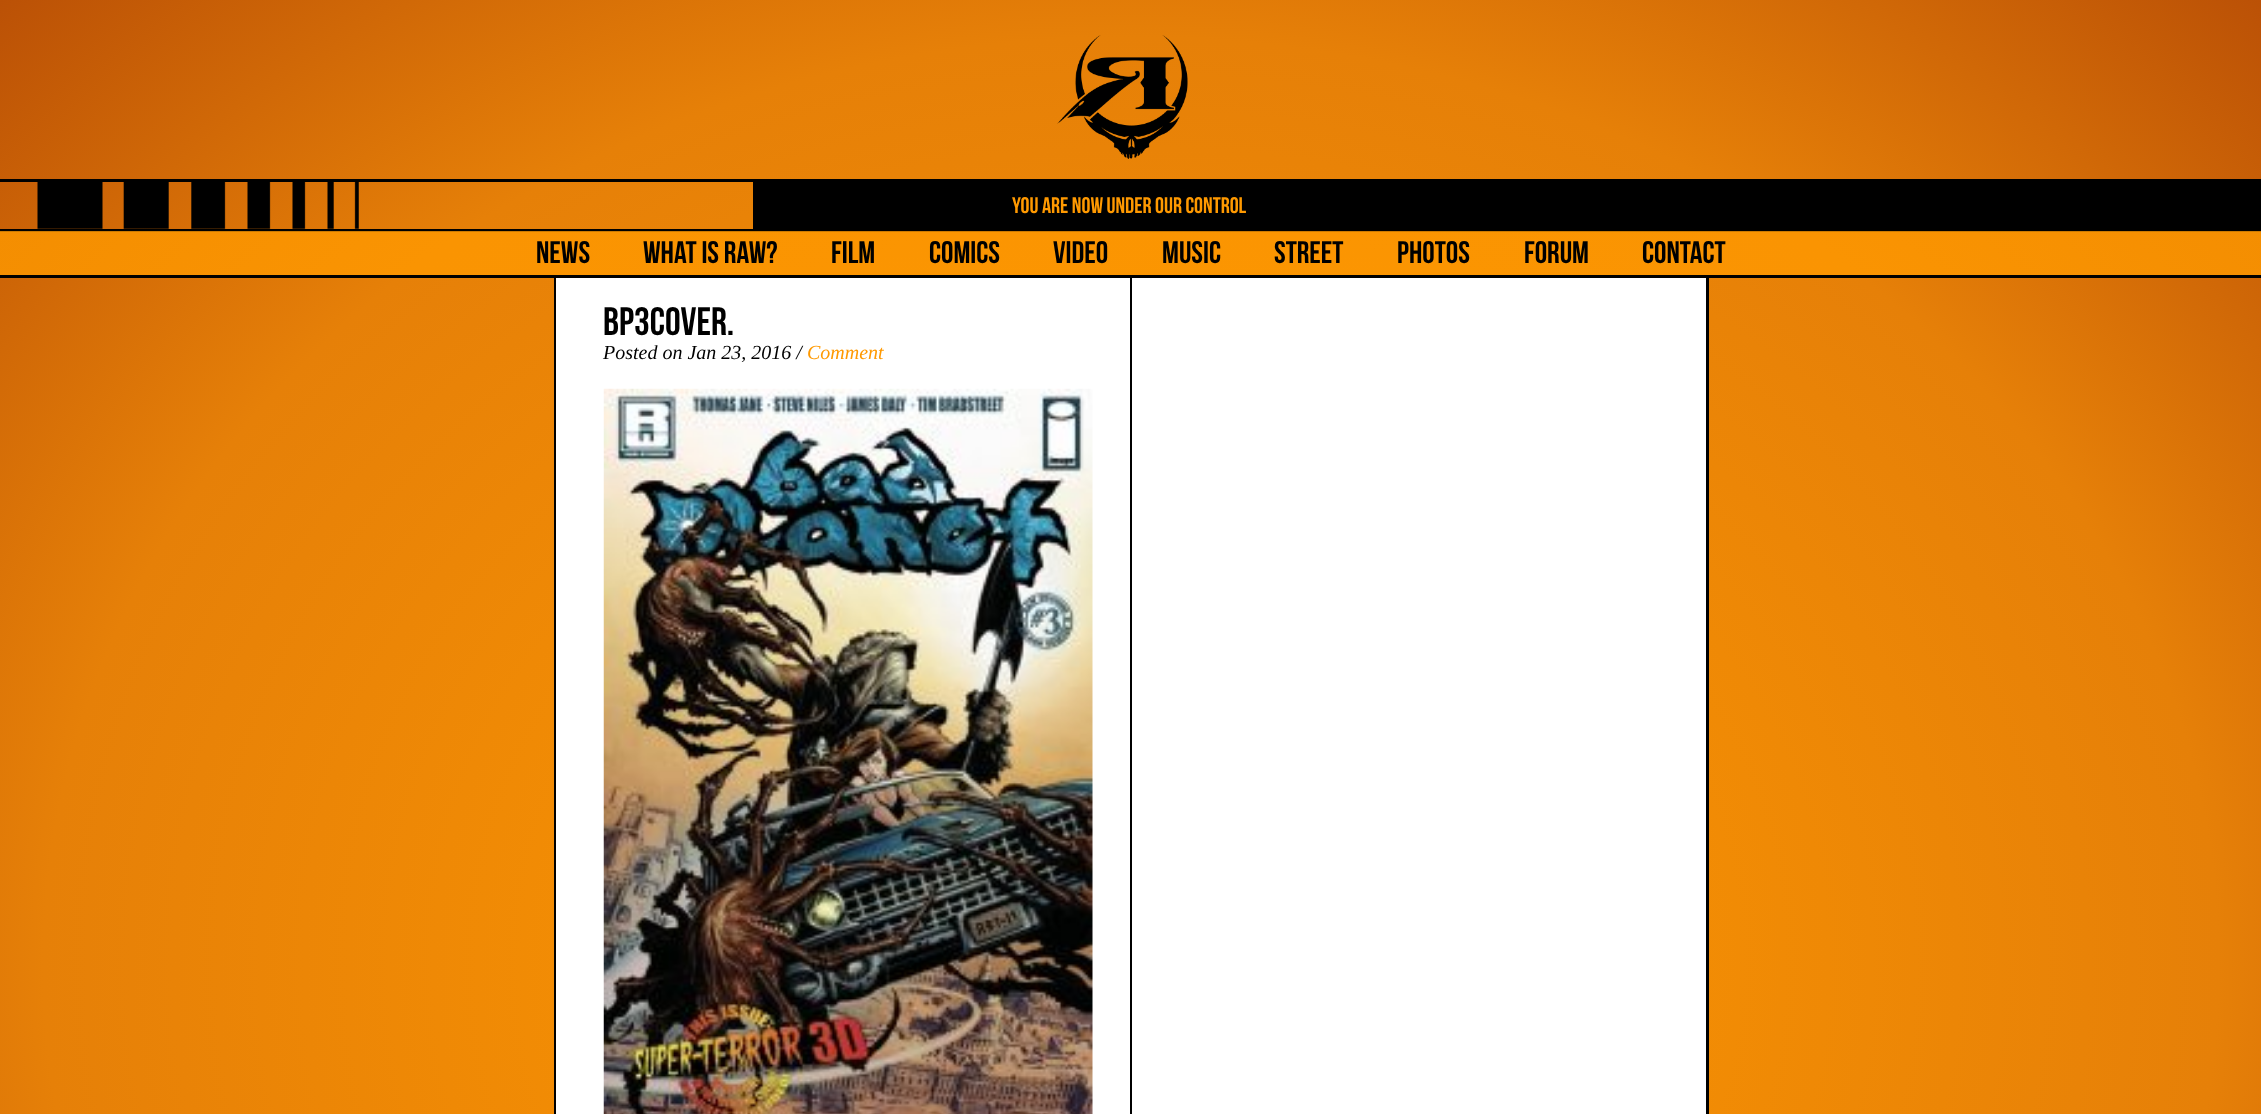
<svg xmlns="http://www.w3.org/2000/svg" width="2261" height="1114">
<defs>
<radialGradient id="g1" gradientUnits="userSpaceOnUse" cx="0" cy="0" r="1" gradientTransform="matrix(1599 0 0 1366 1131 966)"><stop offset="0" stop-color="#f90"/><stop offset="0.68" stop-color="#e68008"/><stop offset="1" stop-color="#bb5106"/></radialGradient>
<radialGradient id="g2" gradientUnits="userSpaceOnUse" cx="0" cy="0" r="1" gradientTransform="matrix(1599 0 0 1366 1131 966)"><stop offset="0" stop-color="#f90"/><stop offset="0.68" stop-color="#fa9402"/><stop offset="1" stop-color="#f18b01"/></radialGradient>
</defs>
<rect width="100%" height="100%" fill="#fff"/>
<rect width="2261" height="1114" fill="url(#g1)"/>
<rect y="232" width="2261" height="43" fill="url(#g2)"/>
<image x="1057" y="35" width="131" height="124" href="media/1.png"/>
<rect y="179" width="2261" height="3" fill="#000"/>
<rect y="229" width="2261" height="2" fill="#000"/>
<rect y="231" width="2261" height="1" fill="#cc7a00"/>
<image x="37" y="182" width="322" height="47" href="media/2.png"/>
<rect x="753" y="182" width="1508" height="47" fill="#000"/>
<text x="1012" y="213" style="font-family:Bebas Neue;font-size:22.5px;font-weight:bold;fill:#f90">YOU ARE NOW UNDER OUR CONTROL</text>
<rect y="275" width="2261" height="3" fill="#000"/>
<text x="536" y="263" style="font-family:Bebas Neue;font-size:31.25px;font-weight:bold;fill:#000">NEWS</text>
<text x="643" y="263" style="font-family:Bebas Neue;font-size:31.25px;font-weight:bold;fill:#000">What is Raw?</text>
<text x="831" y="263" style="font-family:Bebas Neue;font-size:31.25px;font-weight:bold;fill:#000">Film</text>
<text x="929" y="263" style="font-family:Bebas Neue;font-size:31.25px;font-weight:bold;fill:#000">Comics</text>
<text x="1053" y="263" style="font-family:Bebas Neue;font-size:31.25px;font-weight:bold;fill:#000">Video</text>
<text x="1162" y="263" style="font-family:Bebas Neue;font-size:31.25px;font-weight:bold;fill:#000">Music</text>
<text x="1274" y="263" style="font-family:Bebas Neue;font-size:31.25px;font-weight:bold;fill:#000">Street</text>
<text x="1397" y="263" style="font-family:Bebas Neue;font-size:31.25px;font-weight:bold;fill:#000">Photos</text>
<text x="1524" y="263" style="font-family:Bebas Neue;font-size:31.25px;font-weight:bold;fill:#000">Forum</text>
<text x="1642" y="263" style="font-family:Bebas Neue;font-size:31.25px;font-weight:bold;fill:#000">Contact</text>
<rect x="554" y="278" width="1155" height="836" fill="#000"/>
<rect x="556" y="278" width="574" height="836" fill="#fff"/>
<text x="603" y="335" style="font-family:Bebas Neue;font-size:39.5px;font-weight:bold;fill:#000">BP3cover.</text>
<text x="603" y="359" style="font-family:Liberation Serif;font-size:20px;font-style:italic;fill:#000">Posted on Jan 23, 2016 /</text>
<text x="807" y="359" style="font-family:Liberation Serif;font-size:20px;font-style:italic;fill:#f90">Comment</text>
<image x="603" y="388" width="490" height="726" href="media/3.png"/>
<rect x="1132" y="278" width="574" height="836" fill="#fff"/>
</svg>
